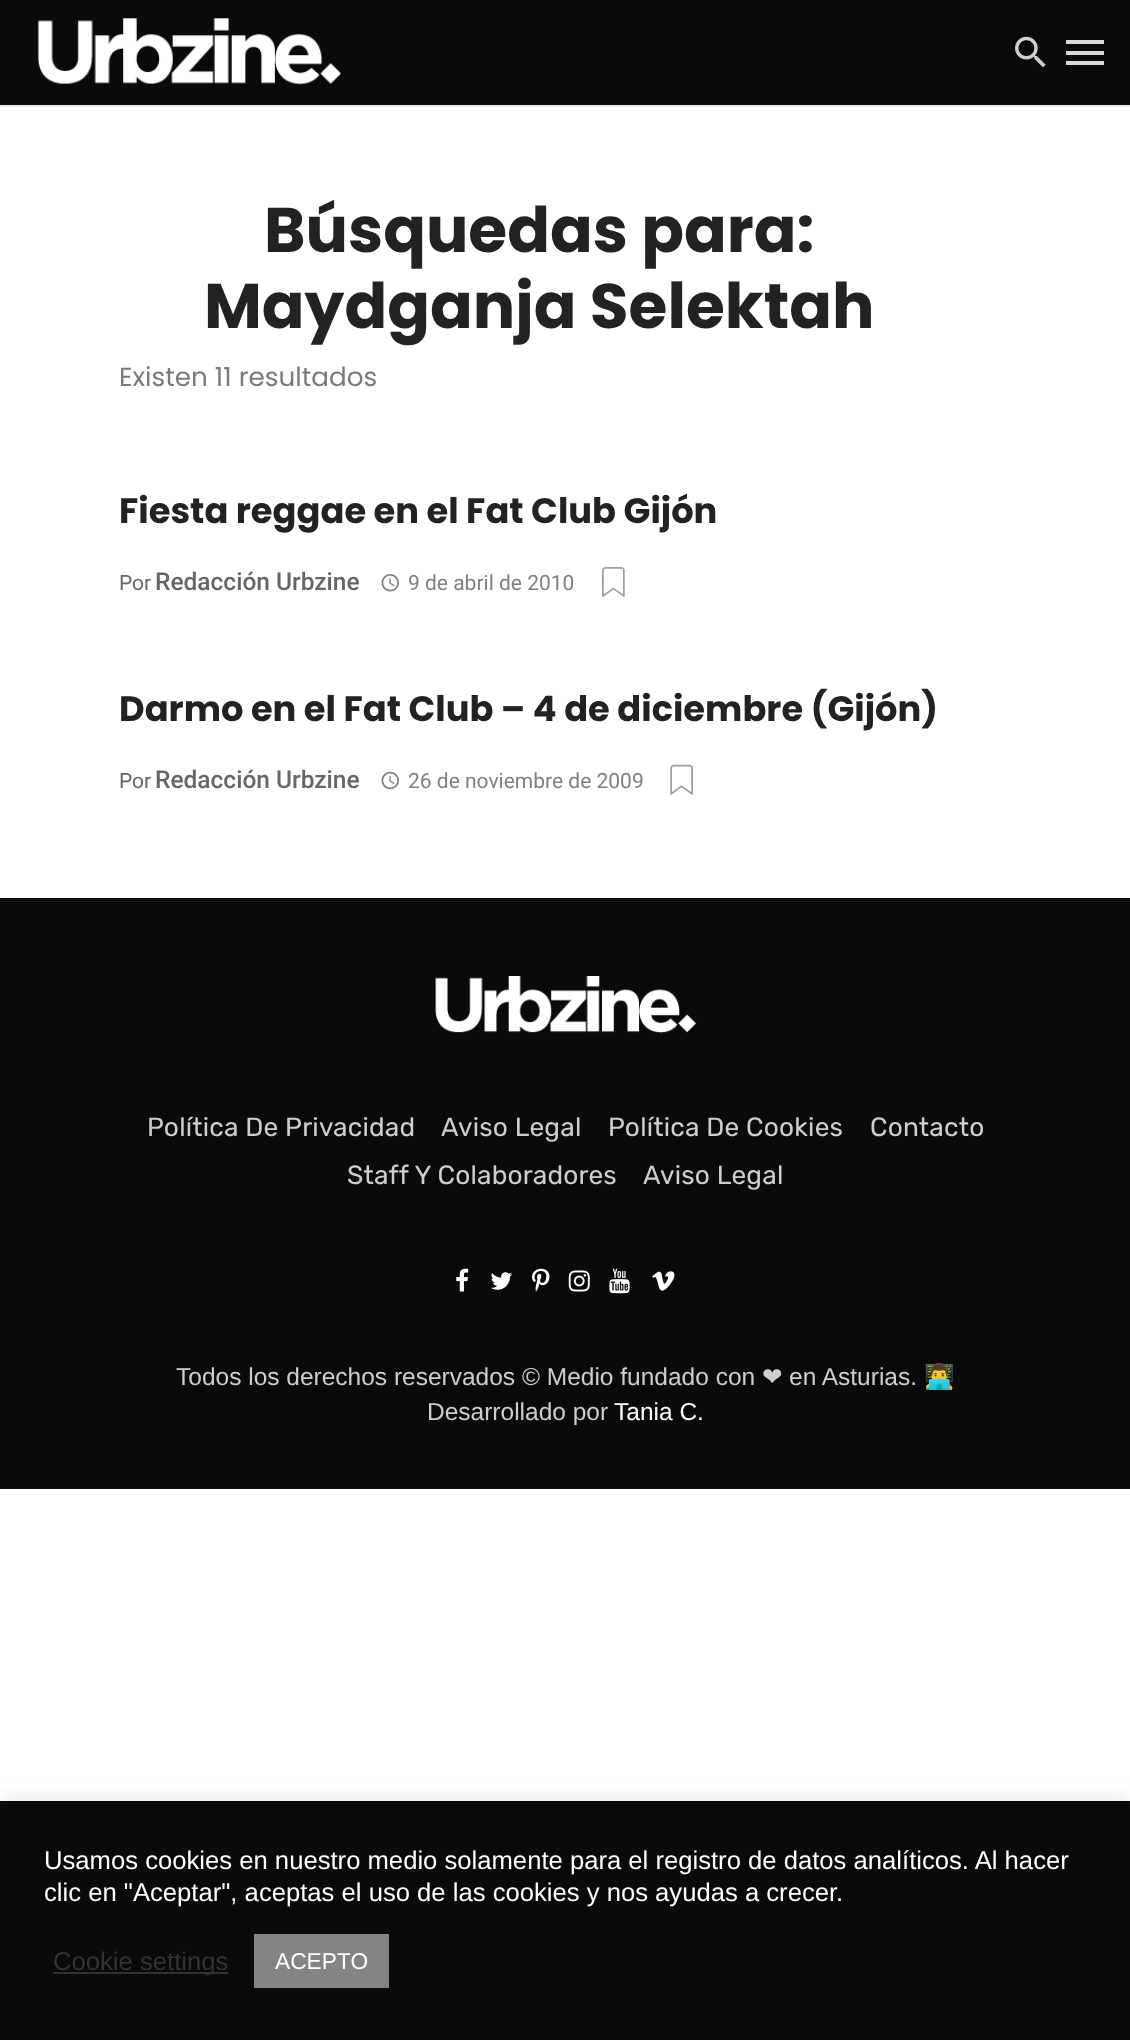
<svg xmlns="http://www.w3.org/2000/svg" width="1130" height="2040">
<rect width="100%" height="100%" fill="#fff"/>
<path d="M0 105v2h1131v-105h-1v103z" fill="#f5f5f5"/>
<path d="M0 105v2h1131v-105h-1v103z" fill="#0000000a"/>
<rect width="1130" height="105" fill="#0a0a0a"/>
<image x="37" y="18" width="305" height="67" href="media/1.png"/>
<image x="1015" y="36" width="31" height="32" href="media/2.png"/>
<rect x="1066" y="51" width="38" height="4" fill="#dadada"/>
<rect x="1066" y="40" width="38" height="4" fill="#dadada"/>
<rect x="1066" y="61" width="38" height="4" fill="#dadada"/>
<text x="264" y="252" style="font-family:Poppins;font-size:63px;font-weight:bold;fill:#222">Búsquedas para:</text>
<text x="204" y="328" style="font-family:Poppins;font-size:63px;font-weight:bold;fill:#222">Maydganja Selektah</text>
<text x="119" y="386" style="font-family:Poppins;font-size:26.25px;fill:#7a7a7a">Existen 11 resultados</text>
<text x="119" y="523" style="font-family:Poppins;font-size:35.25px;font-weight:bold;fill:#222">Fiesta reggae en el Fat Club Gijón</text>
<text x="119" y="590" style="font-family:Roboto;font-size:21px;fill:#666">Por</text>
<text x="155" y="590" style="font-family:Roboto;font-size:24.5px;font-weight:500;fill:#666">Redacción Urbzine</text>
<image x="381" y="574" width="18" height="18" href="media/3.png"/>
<text x="408" y="590" style="font-family:Roboto;font-size:21px;fill:#808080">9 de abril de 2010</text>
<image x="602" y="567" width="23" height="30" href="media/4.png"/>
<text x="119" y="721" style="font-family:Poppins;font-size:35.25px;font-weight:bold;fill:#222">Darmo en el Fat Club – 4 de diciembre (Gijón)</text>
<text x="119" y="788" style="font-family:Roboto;font-size:21px;fill:#666">Por</text>
<text x="155" y="788" style="font-family:Roboto;font-size:24.5px;font-weight:500;fill:#666">Redacción Urbzine</text>
<image x="381" y="771" width="18" height="19" href="media/5.png"/>
<text x="408" y="788" style="font-family:Roboto;font-size:21px;fill:#808080">26 de noviembre de 2009</text>
<image x="670" y="764" width="23" height="31" href="media/6.png"/>
<rect y="898" width="1130" height="591" fill="#0a0a0a"/>
<image x="435" y="976" width="262" height="57" href="media/7.png"/>
<text x="147" y="1136" style="font-family:Rubik;font-size:26.25px;letter-spacing:0.2px;fill:#cecece">Política De Privacidad</text>
<text x="441" y="1136" style="font-family:Rubik;font-size:26.25px;letter-spacing:0.2px;fill:#cecece">Aviso Legal</text>
<text x="608" y="1136" style="font-family:Rubik;font-size:26.25px;letter-spacing:0.2px;fill:#cecece">Política De Cookies</text>
<text x="870" y="1136" style="font-family:Rubik;font-size:26.25px;letter-spacing:0.2px;fill:#cecece">Contacto</text>
<text x="347" y="1184" style="font-family:Rubik;font-size:26.25px;letter-spacing:0.2px;fill:#cecece">Staff Y Colaboradores</text>
<text x="643" y="1184" style="font-family:Rubik;font-size:26.25px;letter-spacing:0.2px;fill:#cecece">Aviso Legal</text>
<image x="456" y="1268" width="13" height="24" href="media/8.png"/>
<image x="490" y="1272" width="22" height="18" href="media/9.png"/>
<image x="532" y="1268" width="18" height="24" href="media/10.png"/>
<image x="568" y="1270" width="22" height="22" href="media/11.png"/>
<image x="609" y="1268" width="21" height="26" href="media/12.png"/>
<image x="652" y="1271" width="23" height="20" href="media/13.png"/>
<text x="176" y="1385" style="font-family:Liberation Sans;font-size:24.5px;fill:#cecece">Todos los derechos reservados © Medio fundado con</text>
<text x="762" y="1385" style="font-family:DejaVu Sans;font-size:24.5px;fill:#cecece">❤</text>
<text x="789" y="1385" style="font-family:Liberation Sans;font-size:24.5px;fill:#cecece">en Asturias.</text>
<text x="924" y="1385" style="font-family:Noto Color Emoji;font-size:24.5px;fill:#cecece">👨‍💻</text>
<text x="427" y="1420" style="font-family:Liberation Sans;font-size:24.5px;fill:#cecece">Desarrollado por</text>
<text x="614" y="1420" style="font-family:Liberation Sans;font-size:24.5px;fill:#fff">Tania C.</text>
<rect y="1799" width="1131" height="240" fill="#acabab4d" filter="blur(9px)"/>
<rect y="1801" width="1130" height="239" fill="#0a0a0a"/>
<text x="44" y="1869" style="font-family:Liberation Sans;font-size:25.65px;fill:#fff">Usamos cookies en nuestro medio solamente para el registro de datos analíticos. Al hacer</text>
<text x="44" y="1901" style="font-family:Liberation Sans;font-size:25.65px;fill:#fff">clic en "Aceptar", aceptas el uso de las cookies y nos ayudas a crecer.</text>
<rect x="53" y="1972" width="175" height="2" fill="#333"/>
<text x="53" y="1970" style="font-family:Liberation Sans;font-size:25.65px;fill:#333">Cookie settings</text>
<rect x="254" y="1934" width="135" height="54" fill="#848484"/>
<text x="275" y="1969" style="font-family:Liberation Sans;font-size:22.75px;fill:#fff">ACEPTO</text>
</svg>
